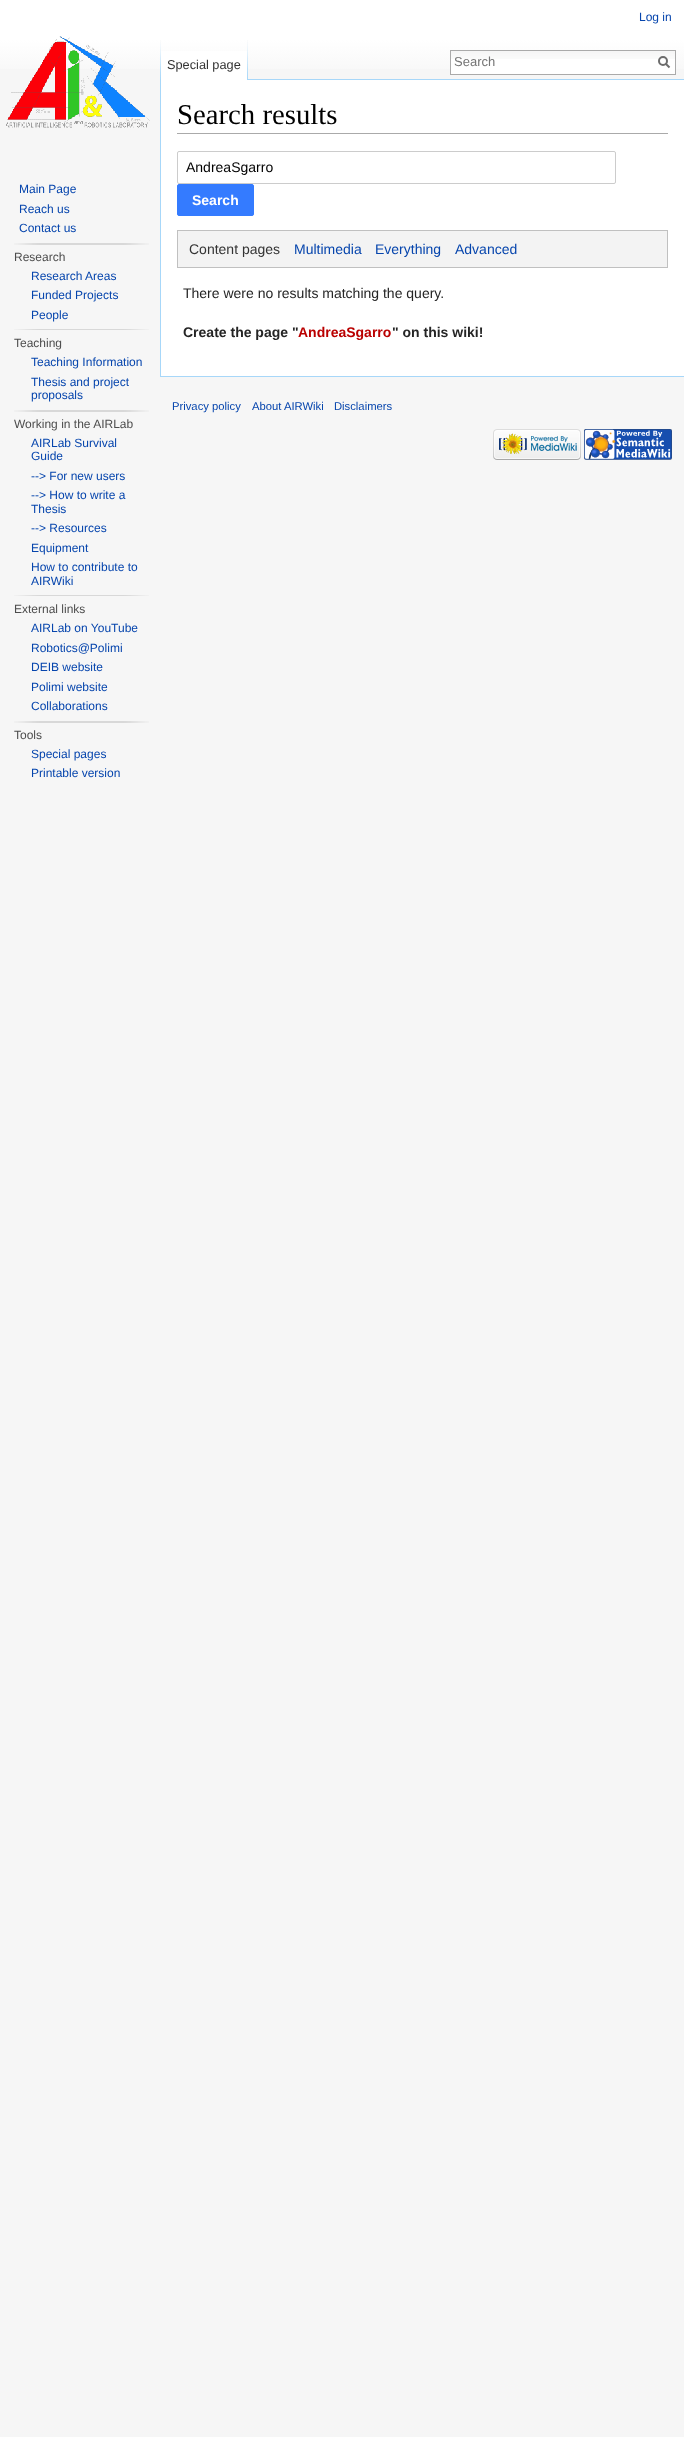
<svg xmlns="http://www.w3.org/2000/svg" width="684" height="2437">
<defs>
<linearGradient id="g1" gradientUnits="userSpaceOnUse" x1="342" y1="0" x2="342" y2="80"><stop offset="0.5" stop-color="#fff"/><stop offset="1" stop-color="#f6f6f6"/></linearGradient>
</defs>
<rect width="100%" height="100%" fill="#f6f6f6"/>
<rect width="684" height="69" fill="url(#g1)"/>
<text x="639" y="21" style="font-family:Liberation Sans;font-size:12px;fill:#0645ad">Log in</text>
<image x="160" y="40" width="1" height="39" href="media/1.png"/>
<rect x="161" y="51" width="86" height="29" fill="#fff"/>
<image x="247" y="40" width="1" height="40" href="media/2.png"/>
<text x="167" y="69" style="font-family:Liberation Sans;font-size:12.75px;fill:#333">Special page</text>
<rect x="451" y="59" width="224" height="15" fill="#fff"/>
<image x="451" y="51" width="224" height="8" href="media/3.png"/>
<rect x="450.5" y="50.5" width="225" height="24" fill="none" stroke="#aaa"/>
<text x="454" y="66" style="font-family:Liberation Sans;font-size:13px;fill:#757575">Search</text>
<path d="M669.5 67.5l-4-4" fill="none" stroke="#6c6c6c" stroke-width="2"/>
<circle cx="663" cy="61" r="4" fill="none" stroke="#6c6c6c" stroke-width="2"/>
<image x="6" y="36" width="144" height="92" href="media/4.png"/>
<text x="19" y="193" style="font-family:Liberation Sans;font-size:12px;fill:#0645ad">Main Page</text>
<text x="19" y="213" style="font-family:Liberation Sans;font-size:12px;fill:#0645ad">Reach us</text>
<text x="19" y="232" style="font-family:Liberation Sans;font-size:12px;fill:#0645ad">Contact us</text>
<image x="14" y="243" width="135" height="2" href="media/5.png"/>
<text x="14" y="261" style="font-family:Liberation Sans;font-size:12px;fill:#4d4d4d">Research</text>
<text x="31" y="280" style="font-family:Liberation Sans;font-size:12px;fill:#0645ad">Research Areas</text>
<text x="31" y="299" style="font-family:Liberation Sans;font-size:12px;fill:#0645ad">Funded Projects</text>
<text x="31" y="319" style="font-family:Liberation Sans;font-size:12px;fill:#0645ad">People</text>
<image x="14" y="329" width="135" height="1" href="media/6.png"/>
<text x="14" y="347" style="font-family:Liberation Sans;font-size:12px;fill:#4d4d4d">Teaching</text>
<text x="31" y="366" style="font-family:Liberation Sans;font-size:12px;fill:#0645ad">Teaching Information</text>
<text x="31" y="386" style="font-family:Liberation Sans;font-size:12px;fill:#0645ad">Thesis and project</text>
<text x="31" y="399" style="font-family:Liberation Sans;font-size:12px;fill:#0645ad">proposals</text>
<image x="14" y="410" width="135" height="2" href="media/5.png"/>
<text x="14" y="428" style="font-family:Liberation Sans;font-size:12px;fill:#4d4d4d">Working in the AIRLab</text>
<text x="31" y="447" style="font-family:Liberation Sans;font-size:12px;fill:#0645ad">AIRLab Survival</text>
<text x="31" y="460" style="font-family:Liberation Sans;font-size:12px;fill:#0645ad">Guide</text>
<text x="31" y="480" style="font-family:Liberation Sans;font-size:12px;fill:#0645ad">--&gt; For new users</text>
<text x="31" y="499" style="font-family:Liberation Sans;font-size:12px;fill:#0645ad">--&gt; How to write a</text>
<text x="31" y="513" style="font-family:Liberation Sans;font-size:12px;fill:#0645ad">Thesis</text>
<text x="31" y="532" style="font-family:Liberation Sans;font-size:12px;fill:#0645ad">--&gt; Resources</text>
<text x="31" y="552" style="font-family:Liberation Sans;font-size:12px;fill:#0645ad">Equipment</text>
<text x="31" y="571" style="font-family:Liberation Sans;font-size:12px;fill:#0645ad">How to contribute to</text>
<text x="31" y="585" style="font-family:Liberation Sans;font-size:12px;fill:#0645ad">AIRWiki</text>
<image x="14" y="595" width="135" height="1" href="media/6.png"/>
<text x="14" y="613" style="font-family:Liberation Sans;font-size:12px;fill:#4d4d4d">External links</text>
<text x="31" y="632" style="font-family:Liberation Sans;font-size:12px;fill:#0645ad">AIRLab on YouTube</text>
<text x="31" y="652" style="font-family:Liberation Sans;font-size:12px;fill:#0645ad">Robotics@Polimi</text>
<text x="31" y="671" style="font-family:Liberation Sans;font-size:12px;fill:#0645ad">DEIB website</text>
<text x="31" y="691" style="font-family:Liberation Sans;font-size:12px;fill:#0645ad">Polimi website</text>
<text x="31" y="710" style="font-family:Liberation Sans;font-size:12px;fill:#0645ad">Collaborations</text>
<image x="14" y="721" width="135" height="2" href="media/5.png"/>
<text x="14" y="739" style="font-family:Liberation Sans;font-size:12px;fill:#4d4d4d">Tools</text>
<text x="31" y="758" style="font-family:Liberation Sans;font-size:12px;fill:#0645ad">Special pages</text>
<text x="31" y="777" style="font-family:Liberation Sans;font-size:12px;fill:#0645ad">Printable version</text>
<rect x="161" y="80" width="523" height="296" fill="#fff"/>
<rect x="248" y="79" width="436" height="1" fill="#a7d7f9"/>
<rect x="160" y="376" width="524" height="1" fill="#a7d7f9"/>
<rect x="160" y="79" width="1" height="298" fill="#a7d7f9"/>
<rect x="177" y="133" width="491" height="1" fill="#aaa"/>
<text x="177" y="124" style="font-family:Liberation Serif;font-size:28.75px;fill:#000">Search results</text>
<rect x="177.5" y="151.5" width="438" height="32" rx="1.5" fill="none" stroke="#ccc"/>
<text x="186" y="172" style="font-family:Liberation Sans;font-size:14px;fill:#000">AndreaSgarro</text>
<rect x="177.5" y="184.5" width="76" height="31" rx="1.5" fill="#347bff" stroke="#347bff"/>
<text x="192" y="205" style="font-family:Liberation Sans;font-size:14px;font-weight:bold;fill:#fff">Search</text>
<rect x="177.5" y="230.5" width="490" height="37" fill="#f3f3f3" stroke="#c0c0c0"/>
<text x="189" y="254" style="font-family:Liberation Sans;font-size:14px;fill:#333">Content pages</text>
<text x="294" y="254" style="font-family:Liberation Sans;font-size:14px;fill:#0645ad">Multimedia</text>
<text x="375" y="254" style="font-family:Liberation Sans;font-size:14px;fill:#0645ad">Everything</text>
<text x="455" y="254" style="font-family:Liberation Sans;font-size:14px;fill:#0645ad">Advanced</text>
<text x="183" y="298" style="font-family:Liberation Sans;font-size:14px;fill:#252525">There were no results matching the query.</text>
<text x="183" y="337" style="font-family:Liberation Sans;font-size:14px;font-weight:bold;fill:#252525">Create the page "</text>
<text x="298" y="337" style="font-family:Liberation Sans;font-size:14px;font-weight:bold;fill:#ba0000">AndreaSgarro</text>
<text x="392" y="337" style="font-family:Liberation Sans;font-size:14px;font-weight:bold;fill:#252525">" on this wiki!</text>
<text x="172" y="410" style="font-family:Liberation Sans;font-size:11.25px;fill:#0645ad">Privacy policy</text>
<text x="252" y="410" style="font-family:Liberation Sans;font-size:11.25px;fill:#0645ad">About AIRWiki</text>
<text x="334" y="410" style="font-family:Liberation Sans;font-size:11.25px;fill:#0645ad">Disclaimers</text>
<image x="493" y="429" width="88" height="31" href="media/7.png"/>
<image x="584" y="429" width="88" height="31" href="media/8.png"/>
</svg>
